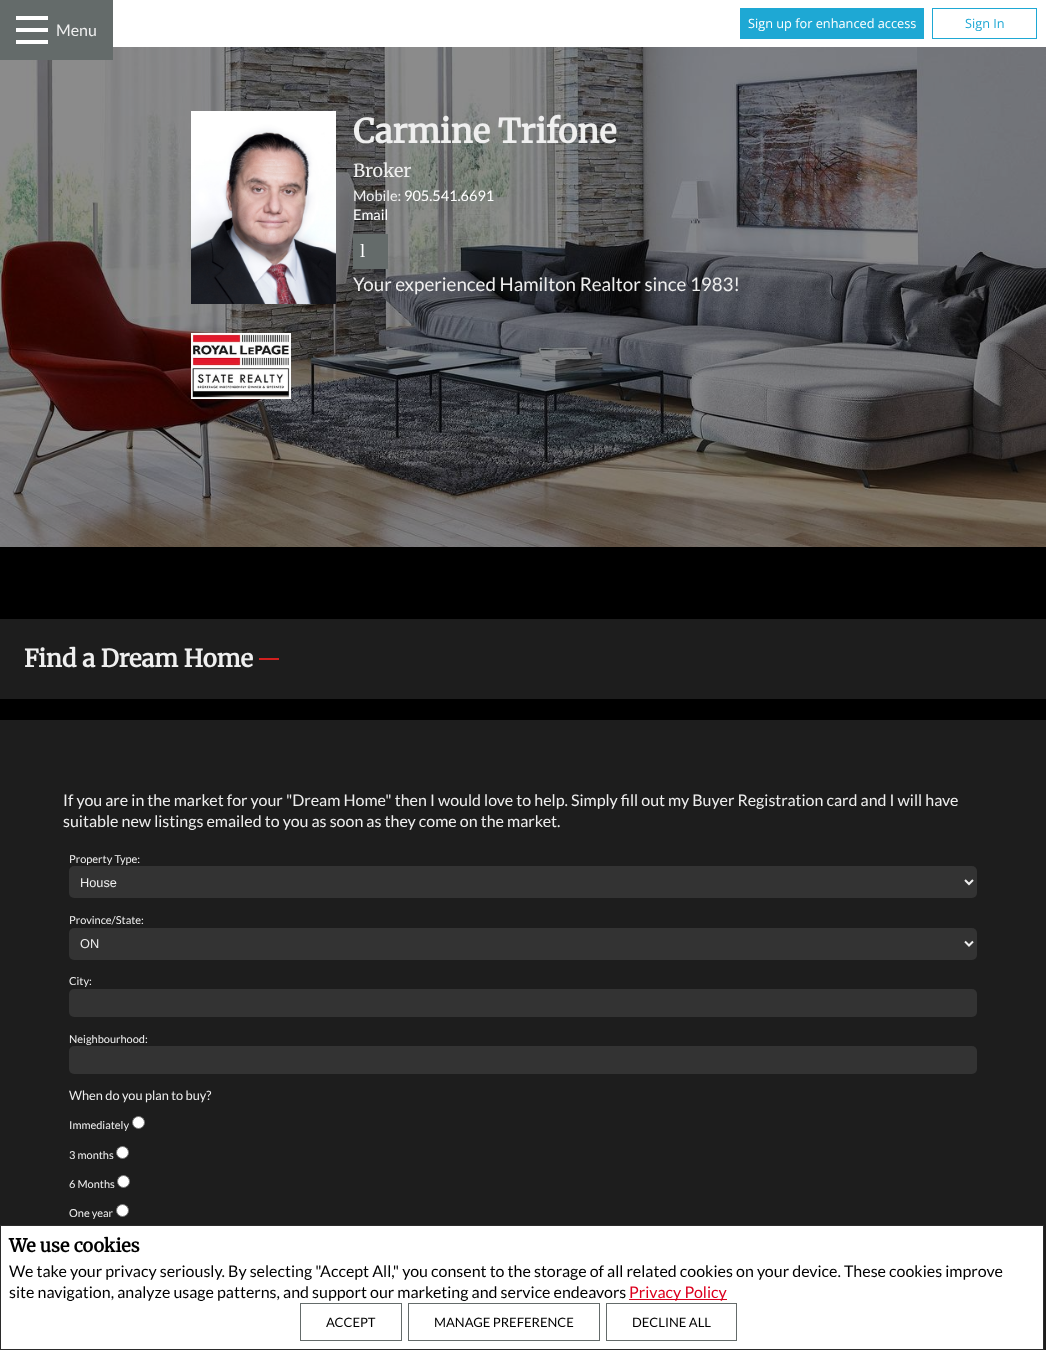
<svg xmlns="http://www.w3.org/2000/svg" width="1046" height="1350">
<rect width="100%" height="100%" fill="#fff"/>
<rect x="740" y="8" width="184" height="31" fill="#1ea8d4"/>
<text x="748" y="28" style="font-family:Open Sans;font-size:12.75px;fill:#fff">Sign up for enhanced access</text>
<rect x="932.5" y="8.5" width="104" height="30" fill="none" stroke="#1ea8d4"/>
<text x="965" y="28" style="font-family:Open Sans;font-size:12.75px;fill:#1ea8d4">Sign In</text>
<image x="0" y="47" width="1046" height="500" href="media/1.png"/>
<rect width="113" height="60" fill="#646b6a"/>
<rect x="16" y="16" width="32" height="4" fill="#fff"/>
<rect x="16" y="28" width="32" height="4" fill="#fff"/>
<rect x="16" y="40" width="32" height="4" fill="#fff"/>
<text x="56" y="36" style="font-family:Lato;font-size:16px;fill:#efefef">Menu</text>
<image x="191" y="111" width="145" height="193" href="media/2.png"/>
<text x="353" y="143" style="font-family:Merriweather;font-size:33px;font-weight:bold;fill:#efefef">Carmine Trifone</text>
<text x="353" y="177" style="font-family:Merriweather;font-size:18px;font-weight:300;fill:#efefef">Broker</text>
<text x="353" y="201" style="font-family:Lato;font-size:14.5px;fill:#efefef">Mobile:</text>
<text x="404" y="201" style="font-family:Lato;font-size:14.5px;fill:#fff">905.541.6691</text>
<text x="353" y="220" style="font-family:Lato;font-size:14.5px;fill:#fff">Email</text>
<rect x="353" y="234" width="35" height="35" fill="#646b6a"/>
<text x="360" y="257" style="font-family:Liberation Serif;font-size:18.75px;fill:#fff">l</text>
<text x="353" y="291" style="font-family:Lato;font-size:18.75px;fill:#efefef">Your experienced Hamilton Realtor since 1983!</text>
<image x="191" y="333" width="100" height="66" href="media/3.png"/>
<rect y="547" width="1046" height="173" fill="#000"/>
<rect y="619" width="1046" height="80" fill="#1d1d1d"/>
<text x="24" y="667" style="font-family:Merriweather;font-size:24px;font-weight:bold;fill:#efefef">Find a Dream Home</text>
<rect x="259" y="658" width="20" height="2" fill="#d1201f"/>
<rect y="720" width="1046" height="630" fill="#1d1d1d"/>
<text x="63" y="806" style="font-family:Lato;font-size:16px;fill:#efefef">If you are in the market for your "Dream Home" then I would love to help. Simply fill out my Buyer Registration card and I will have</text>
<text x="63" y="827" style="font-family:Lato;font-size:16px;fill:#efefef">suitable new listings emailed to you as soon as they come on the market.</text>
<text x="69" y="863" style="font-family:Lato;font-size:11px;fill:#efefef">Property Type:</text>
<rect x="69" y="866" width="908" height="32" rx="5" fill="#333"/>
<path d="M965 880l4 4l4-4" fill="none" stroke="#efefef" stroke-width="2"/>
<text x="80" y="887" style="font-family:Liberation Sans;font-size:12.75px;fill:#efefef">House</text>
<text x="69" y="924" style="font-family:Lato;font-size:11px;fill:#efefef">Province/State:</text>
<rect x="69" y="928" width="908" height="32" rx="5" fill="#333"/>
<path d="M965 941.5l4 4l4-4" fill="none" stroke="#efefef" stroke-width="2"/>
<text x="80" y="948" style="font-family:Liberation Sans;font-size:12.75px;fill:#efefef">ON</text>
<text x="69" y="985" style="font-family:Lato;font-size:11px;fill:#efefef">City:</text>
<rect x="69" y="989" width="908" height="28" rx="5" fill="#333"/>
<text x="69" y="1043" style="font-family:Lato;font-size:11px;fill:#efefef">Neighbourhood:</text>
<rect x="69" y="1046" width="908" height="28" rx="5" fill="#333"/>
<text x="69" y="1100" style="font-family:Lato;font-size:12.75px;fill:#efefef">When do you plan to buy?</text>
<text x="69" y="1129" style="font-family:Lato;font-size:11px;fill:#efefef">Immediately</text>
<circle cx="138.5" cy="1122.5" r="6" fill="#fff" stroke="#767676"/>
<text x="69" y="1159" style="font-family:Lato;font-size:11px;fill:#efefef">3 months</text>
<circle cx="122.5" cy="1152.5" r="6" fill="#fff" stroke="#767676"/>
<text x="69" y="1188" style="font-family:Lato;font-size:11px;fill:#efefef">6 Months</text>
<circle cx="123.5" cy="1181.5" r="6" fill="#fff" stroke="#767676"/>
<text x="69" y="1217" style="font-family:Lato;font-size:11px;fill:#efefef">One year</text>
<circle cx="122.5" cy="1210.5" r="6" fill="#fff" stroke="#767676"/>
<rect x="0.5" y="1225.5" width="1043" height="124" fill="#fff" stroke="#2b2b2b"/>
<text x="9" y="1252" style="font-family:Merriweather;font-size:18px;font-weight:bold;fill:#000">We use cookies</text>
<text x="9" y="1277" style="font-family:Lato;font-size:16px;fill:#000">We take your privacy seriously. By selecting "Accept All," you consent to the storage of all related cookies on your device. These cookies improve</text>
<text x="9" y="1298" style="font-family:Lato;font-size:16px;fill:#000">site navigation, analyze usage patterns, and support our marketing and service endeavors</text>
<rect x="629" y="1299" width="98" height="1" fill="#dc001e"/>
<text x="629" y="1298" style="font-family:Lato;font-size:16px;fill:#dc001e">Privacy Policy</text>
<rect x="300.5" y="1303.5" width="101" height="37" fill="none" stroke="#646b6a"/>
<text x="326" y="1327" style="font-family:Lato;font-size:13px;fill:#000">ACCEPT</text>
<rect x="408.5" y="1303.5" width="191" height="37" fill="none" stroke="#646b6a"/>
<text x="434" y="1327" style="font-family:Lato;font-size:13px;fill:#000">MANAGE PREFERENCE</text>
<rect x="606.5" y="1303.5" width="130" height="37" fill="none" stroke="#646b6a"/>
<text x="632" y="1327" style="font-family:Lato;font-size:13px;fill:#000">DECLINE ALL</text>
</svg>
